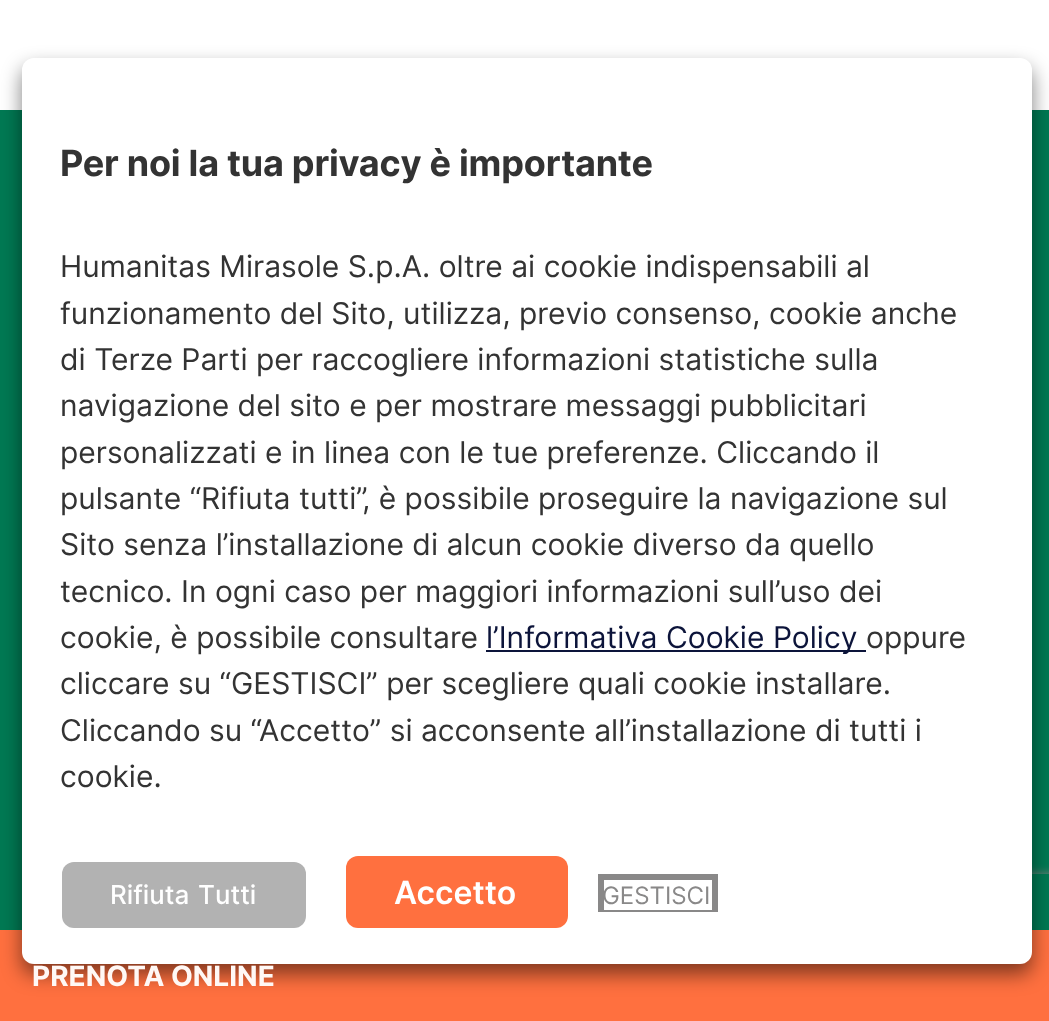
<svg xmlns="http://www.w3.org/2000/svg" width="1049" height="1021">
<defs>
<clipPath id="clip1"><rect x="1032" y="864" width="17" height="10"/></clipPath>
</defs>
<rect width="100%" height="100%" fill="#fff"/>
<rect y="110" width="1049" height="820" fill="#007953"/>
<g clip-path="url(#clip1)">
<rect x="910" y="874" width="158" height="120" rx="4" fill="#808080" filter="blur(5px)"/>
</g>
<rect y="930" width="1049" height="91" fill="#ff703f"/>
<rect x="22" y="68" width="1010" height="906" rx="12" fill="#00000080" filter="blur(10px)"/>
<rect x="22" y="58" width="1010" height="906" rx="12" fill="#fff"/>
<text x="60" y="176" style="font-family:Inter;font-size:36px;font-weight:bold;letter-spacing:-0.2px;fill:#333">Per noi la tua privacy è importante</text>
<text x="60" y="277" style="font-family:Inter;font-size:30px;fill:#333">Humanitas Mirasole S.p.A. oltre ai cookie indispensabili al</text>
<text x="60" y="324" style="font-family:Inter;font-size:30px;fill:#333">funzionamento del Sito, utilizza, previo consenso, cookie anche</text>
<text x="60" y="370" style="font-family:Inter;font-size:30px;fill:#333">di Terze Parti per raccogliere informazioni statistiche sulla</text>
<text x="60" y="416" style="font-family:Inter;font-size:30px;fill:#333">navigazione del sito e per mostrare messaggi pubblicitari</text>
<text x="60" y="463" style="font-family:Inter;font-size:30px;fill:#333">personalizzati e in linea con le tue preferenze. Cliccando il</text>
<text x="60" y="509" style="font-family:Inter;font-size:30px;fill:#333">pulsante “Rifiuta tutti”, è possibile proseguire la navigazione sul</text>
<text x="60" y="555" style="font-family:Inter;font-size:30px;fill:#333">Sito senza l’installazione di alcun cookie diverso da quello</text>
<text x="60" y="602" style="font-family:Inter;font-size:30px;fill:#333">tecnico. In ogni caso per maggiori informazioni sull’uso dei</text>
<text x="60" y="648" style="font-family:Inter;font-size:30px;fill:#333">cookie, è possibile consultare</text>
<rect x="486" y="650" width="380" height="2" fill="#0c143a"/>
<text x="486" y="648" style="font-family:Inter;font-size:30px;fill:#0c143a">l’Informativa Cookie Policy</text>
<text x="866" y="648" style="font-family:Inter;font-size:30px;fill:#333">oppure</text>
<text x="60" y="694" style="font-family:Inter;font-size:30px;fill:#333">cliccare su “GESTISCI” per scegliere quali cookie installare.</text>
<text x="60" y="741" style="font-family:Inter;font-size:30px;fill:#333">Cliccando su “Accetto” si acconsente all’installazione di tutti i</text>
<text x="60" y="787" style="font-family:Inter;font-size:30px;fill:#333">cookie.</text>
<rect x="62" y="862" width="244" height="66" rx="12" fill="#b2b2b2"/>
<text x="110" y="904" word-spacing="2" style="font-family:Inter;font-size:26px;font-weight:500;fill:#fff">Rifiuta Тutti</text>
<rect x="346" y="856" width="222" height="72" rx="12" fill="#ff703f"/>
<text x="394" y="904" style="font-family:Inter;font-size:32px;font-weight:600;fill:#fff">Accetto</text>
<rect x="598" y="874" width="120" height="6" fill="#898888"/>
<rect x="712" y="874" width="6" height="38" fill="#898888"/>
<rect x="598" y="910" width="120" height="2" fill="#898888"/>
<rect x="598" y="874" width="6" height="38" fill="#898888"/>
<text x="602" y="904" style="font-family:Inter;font-size:24px;fill:#898888">GESTISCI</text>
<text x="32" y="986" style="font-family:Inter;font-size:28px;font-weight:bold;fill:#fff8f5">PRENOTA ONLINE</text>
</svg>
